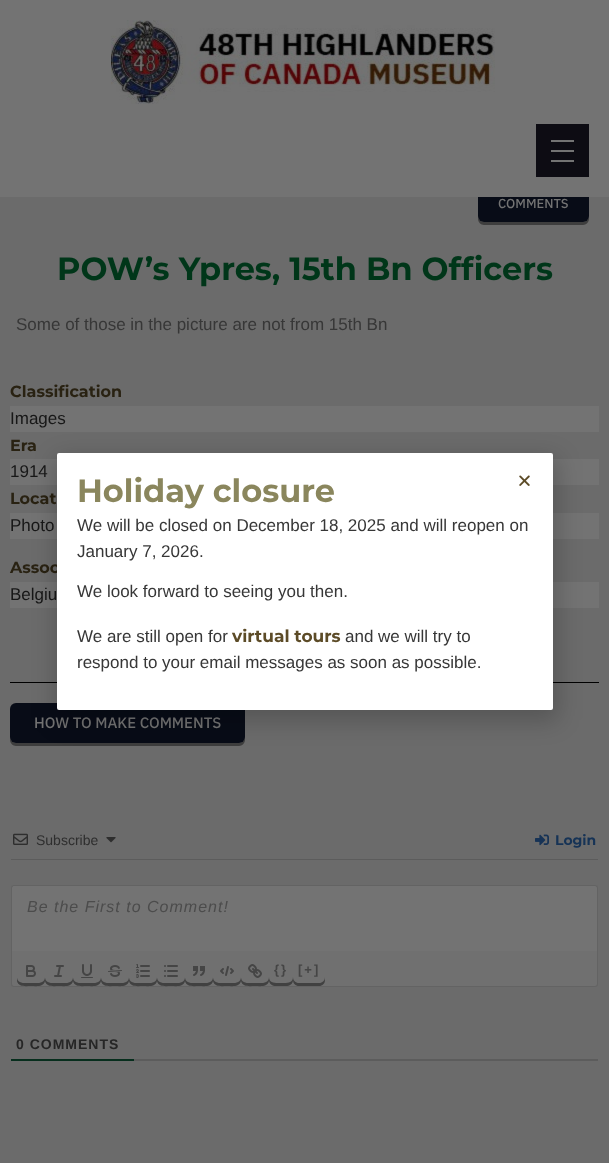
<svg xmlns="http://www.w3.org/2000/svg" width="609" height="1163">
<rect width="100%" height="100%" fill="#6b6b6b"/>
<path d="M478 216v3c0 3 3 6 6 6h99c3 0 6-3 6-6v-3c0 3-3 6-6 6h-99c-3 0-6-3-6-6z" fill="#3e3e3e"/>
<rect x="478" y="187" width="111" height="35" rx="6" fill="#080c17"/>
<rect width="609" height="197" fill="#737373"/>
<image x="111" y="20" width="384" height="84" href="media/1.png"/>
<rect x="536" y="124" width="53" height="53" fill="#0d0c13"/>
<rect x="551" y="150" width="23" height="2" fill="#737373"/>
<rect x="551" y="140" width="23" height="2" fill="#737373"/>
<rect x="551" y="160" width="23" height="2" fill="#737373"/>
<text x="498" y="208" style="font-family:IBM Plex Sans;font-size:13px;font-weight:500;fill:#737373">COMMENTS</text>
<text x="57" y="280" style="font-family:Montserrat;font-size:32px;font-weight:bold;fill:#003619">POW’s Ypres, 15th Bn Officers</text>
<text x="16" y="330" style="font-family:Liberation Sans;font-size:17px;fill:#373737">Some of those in the picture are not from 15th Bn</text>
<text x="10" y="397" style="font-family:Montserrat;font-size:16px;font-weight:bold;fill:#292212">Classification</text>
<rect x="10" y="406" width="589" height="26" fill="#737373"/>
<text x="10" y="424" style="font-family:Liberation Sans;font-size:17px;fill:#171717">Images</text>
<text x="10" y="451" style="font-family:Montserrat;font-size:16px;font-weight:bold;fill:#292212">Era</text>
<rect x="10" y="459" width="589" height="26" fill="#737373"/>
<text x="10" y="477" style="font-family:Liberation Sans;font-size:17px;fill:#171717">1914</text>
<text x="10" y="504" style="font-family:Montserrat;font-size:16px;font-weight:bold;fill:#292212">Locat</text>
<rect x="10" y="513" width="589" height="26" fill="#737373"/>
<text x="10" y="531" style="font-family:Liberation Sans;font-size:17px;fill:#171717">Photo</text>
<text x="10" y="573" style="font-family:Montserrat;font-size:16px;font-weight:bold;fill:#292212">Assoc</text>
<rect x="10" y="582" width="589" height="26" fill="#737373"/>
<text x="10" y="600" style="font-family:Liberation Sans;font-size:17px;fill:#171717">Belgiu</text>
<rect x="10" y="682" width="589" height="1" fill="#000"/>
<path d="M10 737v3c0 3 3 6 6 6h223c3 0 6-3 6-6v-3c0 3-3 6-6 6h-223c-3 0-6-3-6-6z" fill="#3e3e3e"/>
<rect x="10" y="703" width="235" height="40" rx="6" fill="#080c17"/>
<text x="34" y="728" style="font-family:IBM Plex Sans;font-size:15px;font-weight:500;fill:#737373">HOW TO MAKE COMMENTS</text>
<rect x="11" y="859" width="587" height="1" fill="#5c5c5c"/>
<image x="13" y="833" width="15" height="12" href="media/2.png"/>
<text x="36" y="845" style="font-family:Liberation Sans;font-size:14px;fill:#2e2e2e">Subscribe</text>
<image x="106" y="837" width="10" height="6" href="media/3.png"/>
<image x="535" y="834" width="14" height="12" href="media/4.png"/>
<text x="555" y="845" style="font-family:Montserrat;font-size:14px;font-weight:bold;fill:#163356">Login</text>
<path d="M14 885h581c1.5 0 3 1.5 3 3v63h-587v-63c0-1.5 1.5-3 3-3z" fill="#737373"/>
<path d="M14 885h581c2 0 3 1 3 3v63h-587v-63c0-2 1-3 3-3zm0 1h581c1 0 2 1 2 2v63h-585v-63c0-1 1-2 2-2z" fill="#636363" fill-rule="evenodd"/>
<text x="27" y="912" style="font-family:Liberation Sans;font-size:16px;font-style:italic;letter-spacing:1px;fill:#4c4c4c">Be the First to Comment!</text>
<path d="M11 951h587v33c0 1.5-1.5 3-3 3h-581c-1.5 0-3-1.5-3-3z" fill="#707070"/>
<path d="M11 951h587v33c0 2-1 3-3 3h-581c-2 0-3-1-3-3zm1 0h585v33c0 1-1 2-2 2h-581c-1 0-2-1-2-2z" fill="#636363" fill-rule="evenodd"/>
<path d="M73 977v4c1.5 6.5 9.5 5 14 5c4.5 0 12.5 1.5 14-5v-4c0 7.5-9 6-14 6c-5 0-14 1.5-14-6zm28 0v4c1.5 6.5 9.5 5 14 5c4.5 0 12.5 1.5 14-5v-4c0 7.5-9 6-14 6c-5 0-14 1.5-14-6z" fill="#414141"/>
<image x="81" y="964" width="12" height="14" href="media/5.png"/>
<path d="M129 977v4c1.5 6.5 9.5 5 14 5c4.5 0 12.5 1.5 14-5v-4c0 7.5-9 6-14 6c-5 0-14 1.5-14-6zm28 0v4c1.5 6.5 9.5 5 14 5c4.5 0 12.5 1.5 14-5v-4c0 7.5-9 6-14 6c-5 0-14 1.5-14-6z" fill="#414141"/>
<image x="136" y="964" width="14" height="14" href="media/6.png"/>
<path d="M241 977v4c1.5 6.5 9.5 5 14 5c4.5 0 12.5 1.5 14-5v-4c0 7.5-9 6-14 6c-5 0-14 1.5-14-6zm28 0v4c1.5 6 7.5 5 12 5c4.5 0 10.5 1 12-5v-4c0 7-7.5 6-12 6c-4.5 0-12 1-12-6z" fill="#414141"/>
<image x="248" y="964" width="14" height="14" href="media/7.png"/>
<path d="M17 977v4c1.5 6.5 9.5 5 14 5c4.5 0 12.5 1.5 14-5v-4c0 7.5-9 6-14 6c-5 0-14 1.5-14-6zm28 0v4c1.5 6.5 9.5 5 14 5c4.5 0 12.5 1.5 14-5v-4c0 7.5-9 6-14 6c-5 0-14 1.5-14-6z" fill="#414141"/>
<image x="26" y="965" width="10" height="12" href="media/8.png"/>
<text x="274" y="974" style="font-family:Liberation Sans;font-size:13px;font-weight:bold;letter-spacing:2px;fill:#454545">{}</text>
<path d="M293 977v3c0 3.5 2.5 6 6 6h20c3.5 0 6-2.5 6-6v-3c0 3.5-2.5 6-6 6h-20c-3.5 0-6-2.5-6-6z" fill="#414141"/>
<text x="298" y="974" style="font-family:Liberation Sans;font-size:13px;font-weight:bold;letter-spacing:2px;fill:#454545">[+]</text>
<image x="54" y="965" width="10" height="12" href="media/9.png"/>
<image x="108" y="965" width="14" height="12" href="media/10.png"/>
<image x="164" y="965" width="14" height="12" href="media/11.png"/>
<path d="M185 977v4c1.5 6.5 9.5 5 14 5c4.5 0 12.5 1.5 14-5v-4c0 7.5-9 6-14 6c-5 0-14 1.5-14-6zm28 0v4c1.5 6.5 9.5 5 14 5c4.5 0 12.5 1.5 14-5v-4c0 7.5-9 6-14 6c-5 0-14 1.5-14-6z" fill="#414141"/>
<image x="193" y="966" width="12" height="10" href="media/12.png"/>
<image x="220" y="966" width="14" height="10" href="media/13.png"/>
<rect x="134" y="1059" width="464" height="2" fill="#5c5c5c"/>
<rect x="11" y="1059" width="123" height="2" fill="#072e1d"/>
<text x="16" y="1049" style="font-family:Liberation Sans;font-size:14px;font-weight:bold;letter-spacing:1px;fill:#262626">0 COMMENTS</text>
<rect x="56" y="458" width="502" height="263" rx="5" fill="#00000033" filter="blur(11.5px)"/>
<rect x="57" y="453" width="496" height="257" rx="2" fill="#fff"/>
<image x="519" y="475" width="11" height="11" href="media/14.png"/>
<text x="77" y="502" style="font-family:Montserrat;font-size:32px;font-weight:bold;fill:#8a865d">Holiday closure</text>
<text x="77" y="531" style="font-family:Liberation Sans;font-size:17px;fill:#373737">We will be closed on December 18, 2025 and will reopen on</text>
<text x="77" y="557" style="font-family:Liberation Sans;font-size:17px;fill:#373737">January 7, 2026.</text>
<text x="77" y="597" style="font-family:Liberation Sans;font-size:17px;fill:#373737">We look forward to seeing you then.</text>
<text x="77" y="642" style="font-family:Liberation Sans;font-size:17px;fill:#373737">We are still open for</text>
<text x="232" y="642" style="font-family:Montserrat;font-size:17px;font-weight:bold;fill:#5c4b27">virtual tours</text>
<text x="345" y="642" style="font-family:Liberation Sans;font-size:17px;fill:#373737">and we will try to</text>
<text x="77" y="668" style="font-family:Liberation Sans;font-size:17px;fill:#373737">respond to your email messages as soon as possible.</text>
</svg>
